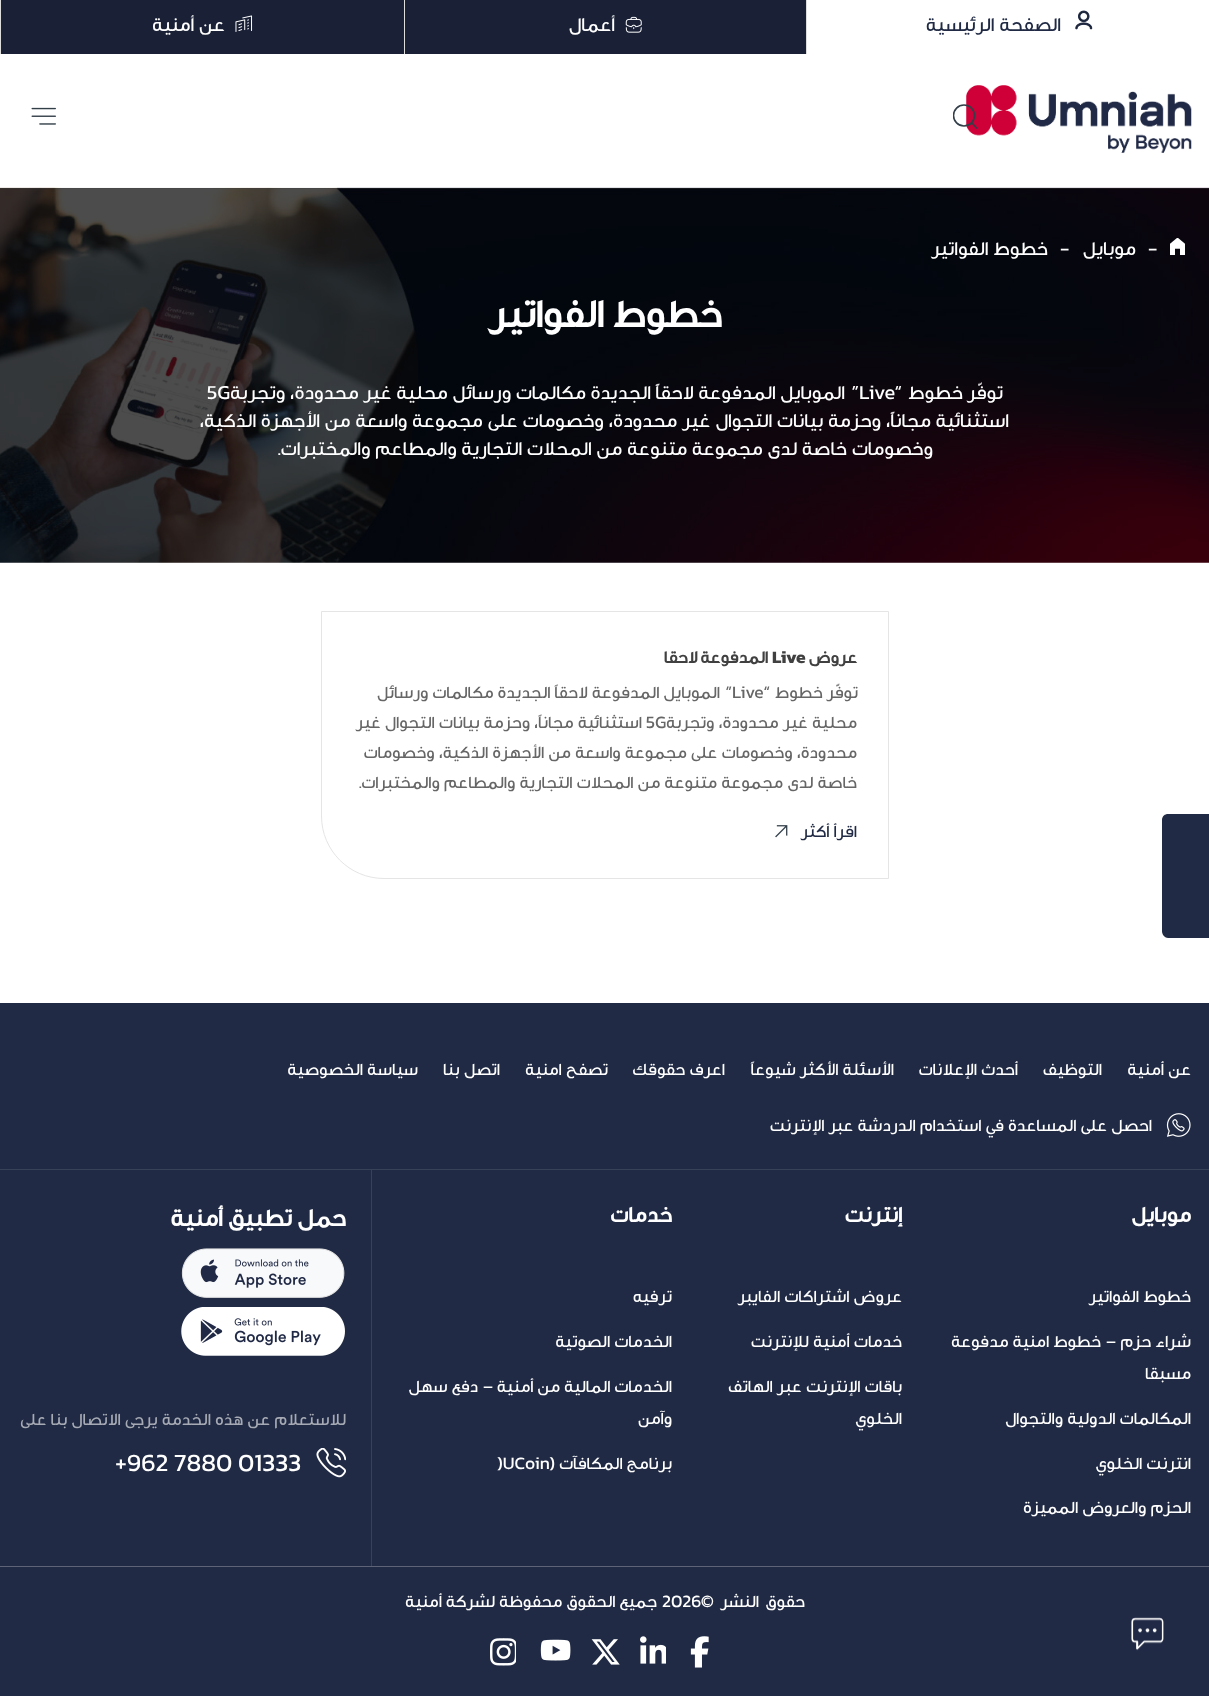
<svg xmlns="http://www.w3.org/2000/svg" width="1209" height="1696">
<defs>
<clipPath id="clip1"><rect x="953" y="104" width="25" height="25"/></clipPath>
</defs>
<rect width="100%" height="100%" fill="#fff"/>
<rect x="806" width="1" height="54" fill="#ddd"/>
<image x="1075" y="10" width="18" height="20" href="media/1.png"/>
<text x="1061" y="31" word-spacing="1.4" style="font-family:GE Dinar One;font-size:20px;font-weight:500;direction:rtl;fill:#202a44">الصفحة الرئيسية</text>
<rect x="405" width="401" height="54" fill="#1a2137"/>
<rect x="404" width="1" height="54" fill="#ddd"/>
<image x="625" y="16" width="17" height="17" href="media/2.png"/>
<text x="615" y="31" style="font-family:GE Dinar One;font-size:20px;font-weight:500;direction:rtl;fill:#fff">أعمال</text>
<rect x="1" width="403" height="54" fill="#1a2137"/>
<rect width="1" height="54" fill="#ddd"/>
<image x="235" y="15" width="18" height="17" href="media/3.png"/>
<text x="225" y="31" word-spacing="1.4" style="font-family:GE Dinar One;font-size:20px;font-weight:500;direction:rtl;fill:#fff">عن أمنية</text>
<image x="966" y="85" width="226" height="68" href="media/4.png"/>
<g clip-path="url(#clip1)">
<circle cx="964" cy="115.5" r="10.5" fill="none" stroke="#323e48" stroke-width="1.6"/>
</g>
<path d="M972 123l4.5 5" fill="none" stroke="#323e48" stroke-width="1.6" stroke-linecap="round" stroke-linejoin="round"/>
<image x="31" y="107" width="25" height="18" href="media/5.png"/>
<image x="0" y="187" width="1209" height="376" href="media/6.png"/>
<image x="1170" y="238" width="15" height="17" href="media/7.png"/>
<text x="1148" y="255" style="font-family:Kanit;font-size:20px;fill:#fff">-</text>
<text x="1136" y="255" style="font-family:GE Dinar One;font-size:20px;font-weight:500;direction:rtl;fill:#fff">موبايل</text>
<text x="1060" y="255" style="font-family:Kanit;font-size:20px;fill:#fff">-</text>
<text x="1048" y="255" word-spacing="1.4" style="font-family:GE Dinar One;font-size:20px;font-weight:500;direction:rtl;fill:#fff">خطوط الفواتير</text>
<text x="722" y="327" word-spacing="2" style="font-family:GE Dinar One;font-size:40px;font-weight:bold;direction:rtl;fill:#fff">خطوط الفواتير</text>
<text x="1003" y="399" word-spacing="1" style="font-family:GE Dinar One;font-size:20px;font-weight:500;direction:rtl;fill:#fff">توفّر خطوط</text>
<text x="902" y="399" style="font-family:Kanit;font-size:20px;direction:rtl;fill:#fff">“</text>
<text x="859" y="399" style="font-family:Kanit;font-size:20px;fill:#fff">Live</text>
<text x="859" y="399" style="font-family:Kanit;font-size:20px;direction:rtl;fill:#fff">”</text>
<text x="845" y="399" word-spacing="1.25" style="font-family:GE Dinar One;font-size:20px;font-weight:500;direction:rtl;fill:#fff">الموبايل المدفوعة لاحقاً الجديدة مكالمات ورسائل محلية غير محدودة، وتجربة</text>
<text x="207" y="399" style="font-family:Kanit;font-size:20px;fill:#fff">5G</text>
<text x="1009" y="427" word-spacing="1.4" style="font-family:GE Dinar One;font-size:20px;font-weight:500;direction:rtl;fill:#fff">استثنائية مجاناً، وحزمة بيانات التجوال غير محدودة، وخصومات على مجموعة واسعة من الأجهزة الذكية،</text>
<text x="933" y="455" word-spacing="1.4" style="font-family:GE Dinar One;font-size:20px;font-weight:500;direction:rtl;fill:#fff">وخصومات خاصة لدى مجموعة متنوعة من المحلات التجارية والمطاعم والمختبرات</text>
<text x="281" y="455" style="font-family:Kanit;font-size:20px;direction:rtl;fill:#fff">.</text>
<path d="M321.5 611.5h567v267h-504.5c-34.5 0-62.5-28-62.5-62.5z" fill="none" stroke="#e5e5e5"/>
<text x="857" y="663" style="font-family:GE Dinar One;font-size:17.5px;font-weight:bold;direction:rtl;fill:#404040">عروض</text>
<text x="772" y="663" style="font-family:Kanit;font-size:17.5px;font-weight:bold;fill:#404040">Live</text>
<text x="768" y="663" style="font-family:GE Dinar One;font-size:17.5px;font-weight:bold;direction:rtl;fill:#404040">المدفوعة لاحقا</text>
<text x="858" y="698" word-spacing="1" style="font-family:GE Dinar One;font-size:17.5px;font-weight:500;direction:rtl;fill:#666">توفّر خطوط</text>
<text x="770" y="698" style="font-family:Kanit;font-size:17.5px;direction:rtl;fill:#666">“</text>
<text x="732" y="698" style="font-family:Kanit;font-size:17.5px;fill:#666">Live</text>
<text x="732" y="698" style="font-family:Kanit;font-size:17.5px;direction:rtl;fill:#666">”</text>
<text x="720" y="698" word-spacing="1" style="font-family:GE Dinar One;font-size:17.5px;font-weight:500;direction:rtl;fill:#666">الموبايل المدفوعة لاحقاً الجديدة مكالمات ورسائل</text>
<text x="857" y="728" word-spacing="1.25" style="font-family:GE Dinar One;font-size:17.5px;font-weight:500;direction:rtl;fill:#666">محلية غير محدودة، وتجربة</text>
<text x="646" y="728" style="font-family:Kanit;font-size:17.5px;fill:#666">5G</text>
<text x="642" y="728" word-spacing="1.25" style="font-family:GE Dinar One;font-size:17.5px;font-weight:500;direction:rtl;fill:#666">استثنائية مجاناً، وحزمة بيانات التجوال غير</text>
<text x="857" y="758" word-spacing="1.25" style="font-family:GE Dinar One;font-size:17.5px;font-weight:500;direction:rtl;fill:#666">محدودة، وخصومات على مجموعة واسعة من الأجهزة الذكية، وخصومات</text>
<text x="857" y="788" word-spacing="1.25" style="font-family:GE Dinar One;font-size:17.5px;font-weight:500;direction:rtl;fill:#666">خاصة لدى مجموعة متنوعة من المحلات التجارية والمطاعم والمختبرات</text>
<text x="362" y="788" style="font-family:Kanit;font-size:17.5px;direction:rtl;fill:#666">.</text>
<text x="857" y="837" word-spacing="1.25" style="font-family:GE Dinar One;font-size:17.5px;font-weight:500;direction:rtl;fill:#202a44">اقرأ أكثر</text>
<image x="775" y="825" width="13" height="13" href="media/8.png"/>
<path d="M1162 931v-111c0-4 3-6 6-6h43c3 0 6 2 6 6v111c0 4-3 7-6 7h-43c-3 0-6-3-6-7z" fill="#202a44"/>
<text x="1283" y="919" transform="rotate(-90 1283 919)" word-spacing="1.4" style="font-family:GE Dinar One;font-size:20px;font-weight:500;direction:rtl;fill:#fff">رأيك بهمنا</text>
<rect y="1003" width="1209" height="693" fill="#202a44"/>
<rect y="1169" width="1209" height="1" fill="#374259"/>
<text x="1191" y="1075" word-spacing="1.25" style="font-family:GE Dinar One;font-size:17.5px;font-weight:500;direction:rtl;fill:#fff">عن أمنية</text>
<text x="1102" y="1075" style="font-family:GE Dinar One;font-size:17.5px;font-weight:500;direction:rtl;fill:#fff">التوظيف</text>
<text x="1018" y="1075" word-spacing="1.25" style="font-family:GE Dinar One;font-size:17.5px;font-weight:500;direction:rtl;fill:#fff">أحدث الإعلانات</text>
<text x="894" y="1075" word-spacing="1.25" style="font-family:GE Dinar One;font-size:17.5px;font-weight:500;direction:rtl;fill:#fff">الأسئلة الأكثر شيوعاً</text>
<text x="725" y="1075" word-spacing="1.25" style="font-family:GE Dinar One;font-size:17.5px;font-weight:500;direction:rtl;fill:#fff">اعرف حقوقك</text>
<text x="608" y="1075" word-spacing="1.25" style="font-family:GE Dinar One;font-size:17.5px;font-weight:500;direction:rtl;fill:#fff">تصفح امنية</text>
<text x="500" y="1075" word-spacing="1.25" style="font-family:GE Dinar One;font-size:17.5px;font-weight:500;direction:rtl;fill:#fff">اتصل بنا</text>
<text x="418" y="1075" word-spacing="1.25" style="font-family:GE Dinar One;font-size:17.5px;font-weight:500;direction:rtl;fill:#fff">سياسة الخصوصية</text>
<image x="1166" y="1113" width="25" height="24" href="media/9.png"/>
<text x="1152" y="1131" word-spacing="1.25" style="font-family:GE Dinar One;font-size:17.5px;font-weight:500;direction:rtl;fill:#fff">احصل على المساعدة في استخدام الدردشة عبر الإنترنت</text>
<rect x="371" y="1170" width="1" height="396" fill="#374259"/>
<text x="1191" y="1222" style="font-family:GE Dinar One;font-size:22.5px;font-weight:bold;direction:rtl;fill:#fff">موبايل</text>
<text x="1191" y="1302" word-spacing="1.25" style="font-family:GE Dinar One;font-size:17.5px;font-weight:500;direction:rtl;fill:#fff">خطوط الفواتير</text>
<text x="1191" y="1347" word-spacing="1" style="font-family:GE Dinar One;font-size:17.5px;font-weight:500;direction:rtl;fill:#fff">شراء حزم</text>
<text x="1116" y="1347" style="font-family:Kanit;font-size:17.5px;direction:rtl;fill:#fff">–</text>
<text x="1101" y="1347" word-spacing="1" style="font-family:GE Dinar One;font-size:17.5px;font-weight:500;direction:rtl;fill:#fff">خطوط امنية مدفوعة</text>
<text x="1191" y="1379" style="font-family:GE Dinar One;font-size:17.5px;font-weight:500;direction:rtl;fill:#fff">مسبقا</text>
<text x="1191" y="1424" word-spacing="1.25" style="font-family:GE Dinar One;font-size:17.5px;font-weight:500;direction:rtl;fill:#fff">المكالمات الدولية والتجوال</text>
<text x="1191" y="1469" word-spacing="1.25" style="font-family:GE Dinar One;font-size:17.5px;font-weight:500;direction:rtl;fill:#fff">انترنت الخلوي</text>
<text x="1191" y="1513" word-spacing="1.25" style="font-family:GE Dinar One;font-size:17.5px;font-weight:500;direction:rtl;fill:#fff">الحزم والعروض المميزة</text>
<text x="902" y="1222" style="font-family:GE Dinar One;font-size:22.5px;font-weight:bold;direction:rtl;fill:#fff">إنترنت</text>
<text x="902" y="1302" word-spacing="1.25" style="font-family:GE Dinar One;font-size:17.5px;font-weight:500;direction:rtl;fill:#fff">عروض اشتراكات الفايبر</text>
<text x="902" y="1347" word-spacing="1.25" style="font-family:GE Dinar One;font-size:17.5px;font-weight:500;direction:rtl;fill:#fff">خدمات أمنية للإنترنت</text>
<text x="902" y="1392" word-spacing="1.25" style="font-family:GE Dinar One;font-size:17.5px;font-weight:500;direction:rtl;fill:#fff">باقات الإنترنت عبر الهاتف</text>
<text x="902" y="1424" style="font-family:GE Dinar One;font-size:17.5px;font-weight:500;direction:rtl;fill:#fff">الخلوي</text>
<text x="672" y="1222" style="font-family:GE Dinar One;font-size:22.5px;font-weight:bold;direction:rtl;fill:#fff">خدمات</text>
<text x="672" y="1302" style="font-family:GE Dinar One;font-size:17.5px;font-weight:500;direction:rtl;fill:#fff">ترفيه</text>
<text x="672" y="1347" word-spacing="1.25" style="font-family:GE Dinar One;font-size:17.5px;font-weight:500;direction:rtl;fill:#fff">الخدمات الصوتية</text>
<text x="672" y="1392" word-spacing="1" style="font-family:GE Dinar One;font-size:17.5px;font-weight:500;direction:rtl;fill:#fff">الخدمات المالية من أمنية</text>
<text x="493" y="1392" style="font-family:Kanit;font-size:17.5px;direction:rtl;fill:#fff">–</text>
<text x="478" y="1392" word-spacing="1" style="font-family:GE Dinar One;font-size:17.5px;font-weight:500;direction:rtl;fill:#fff">دفع سهل</text>
<text x="672" y="1424" style="font-family:GE Dinar One;font-size:17.5px;font-weight:500;direction:rtl;fill:#fff">وآمن</text>
<text x="672" y="1469" word-spacing="1" style="font-family:GE Dinar One;font-size:17.5px;font-weight:500;direction:rtl;fill:#fff">برنامج المكافآت</text>
<text x="555" y="1469" style="font-family:Kanit;font-size:17.5px;direction:rtl;fill:#fff">(</text>
<text x="497" y="1469" style="font-family:Kanit;font-size:17.5px;fill:#fff">)UCoin</text>
<text x="346" y="1226" word-spacing="1" style="font-family:GE Dinar One;font-size:25px;font-weight:bold;direction:rtl;fill:#fff">حمل تطبيق أمنية</text>
<image x="181" y="1248" width="164" height="50" href="media/10.png"/>
<image x="181" y="1307" width="164" height="49" href="media/11.png"/>
<text x="346" y="1425" word-spacing="1.25" style="font-family:GE Dinar One;font-size:17.5px;font-weight:500;direction:rtl;fill:#a6aab4">للاستعلام عن هذه الخدمة يرجى الاتصال بنا على</text>
<image x="316" y="1448" width="30" height="30" href="media/12.png"/>
<text x="115" y="1471" style="font-family:Kanit;font-size:25px;fill:#fff">+962 7880 01333</text>
<rect y="1566" width="1209" height="1" fill="#5e6377"/>
<text x="805" y="1607" style="font-family:GE Dinar One;font-size:17.5px;font-weight:500;direction:rtl;fill:#fff">حقوق</text>
<text x="759" y="1607" style="font-family:GE Dinar One;font-size:17.5px;font-weight:500;direction:rtl;fill:#fff">النشر</text>
<text x="714" y="1607" style="font-family:Kanit;font-size:17.5px;direction:rtl;fill:#fff">©</text>
<text x="662" y="1607" style="font-family:Kanit;font-size:17.5px;fill:#fff">2026</text>
<text x="657" y="1607" word-spacing="1" style="font-family:GE Dinar One;font-size:17.5px;font-weight:500;direction:rtl;fill:#fff">جميع الحقوق محفوظة لشركة أمنية</text>
<image x="690" y="1636" width="19" height="32" href="media/13.png"/>
<image x="640" y="1636" width="26" height="28" href="media/14.png"/>
<image x="591" y="1639" width="29" height="26" href="media/15.png"/>
<image x="540" y="1639" width="31" height="22" href="media/16.png"/>
<image x="490" y="1638" width="26" height="28" href="media/17.png"/>
<image x="1131" y="1617" width="33" height="34" href="media/18.png"/>
</svg>
